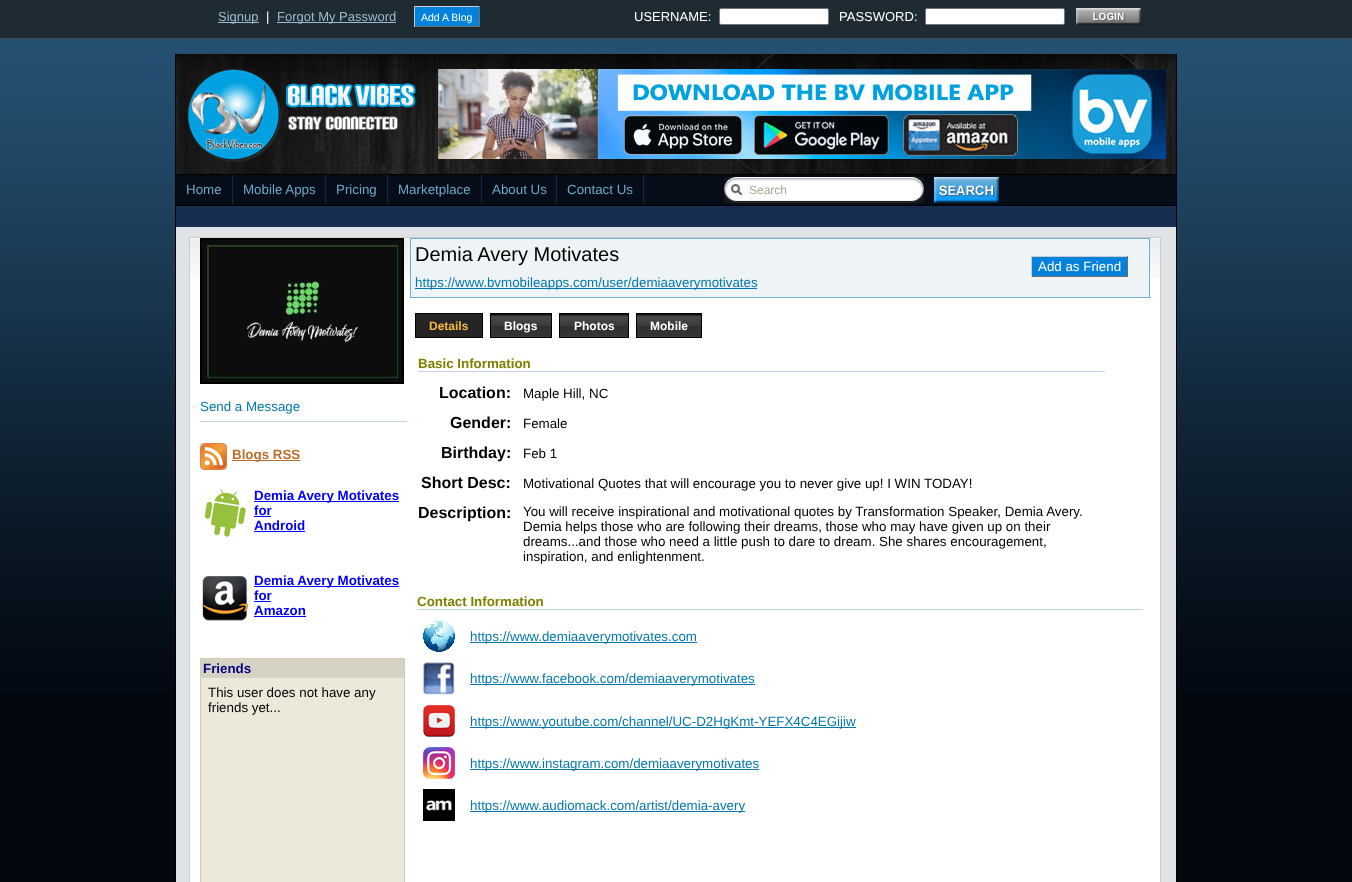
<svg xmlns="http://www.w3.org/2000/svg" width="1352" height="882">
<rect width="100%" height="100%" fill="#02070f"/>
<image x="0" y="39" width="1352" height="653" href="media/1.png"/>
<rect width="1352" height="38" fill="#1f2b33"/>
<rect y="38" width="1352" height="1" fill="#3f4950"/>
<rect x="218" y="22" width="41" height="1" fill="#9bbace"/>
<text x="218" y="21" style="font-family:Liberation Sans;font-size:13px;fill:#9bbace">Signup</text>
<text x="266" y="21" style="font-family:Liberation Sans;font-size:13px;fill:#fff">|</text>
<rect x="277" y="22" width="119" height="1" fill="#9bbace"/>
<text x="277" y="21" style="font-family:Liberation Sans;font-size:13px;fill:#9bbace">Forgot My Password</text>
<rect x="415" y="7" width="64" height="19" fill="#0282dd"/>
<text x="421" y="21" style="font-family:Liberation Sans;font-size:10.5px;fill:#fff">Add A Blog</text>
<rect x="414" y="6" width="66" height="1" fill="#ccc"/>
<rect x="479" y="6" width="1" height="21" fill="#716f64"/>
<rect x="414" y="26" width="66" height="1" fill="#716f64"/>
<rect x="414" y="6" width="1" height="21" fill="#ccc"/>
<text x="634" y="21" style="font-family:Liberation Sans;font-size:13px;fill:#fff">USERNAME:</text>
<rect x="719.5" y="8.5" width="109" height="16" rx="1.5" fill="#fff" stroke="#767676"/>
<text x="839" y="21" style="font-family:Liberation Sans;font-size:13px;fill:#fff">PASSWORD:</text>
<rect x="925.5" y="8.5" width="139" height="16" rx="1.5" fill="#fff" stroke="#767676"/>
<image x="1076" y="8" width="65" height="17" href="media/2.png"/>
<rect x="1176" y="54" width="1" height="828" fill="#000"/>
<rect x="175" y="54" width="1" height="828" fill="#000"/>
<image x="176" y="54" width="1000" height="120" href="media/3.png"/>
<image x="187" y="64" width="249" height="100" href="media/4.png"/>
<image x="438" y="69" width="728" height="90" href="media/5.png"/>
<rect x="176" y="174" width="1000" height="1" fill="#000"/>
<rect x="176" y="205" width="1000" height="1" fill="#000"/>
<rect x="176" y="175" width="1000" height="30" fill="#060d18"/>
<rect x="232" y="175" width="1" height="29" fill="#122b41"/>
<text x="186" y="194" style="font-family:Liberation Sans;font-size:13.35px;fill:#6ca7c7">Home</text>
<rect x="325" y="175" width="1" height="29" fill="#122b41"/>
<text x="243" y="194" style="font-family:Liberation Sans;font-size:13.35px;fill:#6ca7c7">Mobile Apps</text>
<rect x="387" y="175" width="1" height="29" fill="#122b41"/>
<text x="336" y="194" style="font-family:Liberation Sans;font-size:13.35px;fill:#6ca7c7">Pricing</text>
<rect x="481" y="175" width="1" height="29" fill="#122b41"/>
<text x="398" y="194" style="font-family:Liberation Sans;font-size:13.35px;fill:#6ca7c7">Marketplace</text>
<rect x="556" y="175" width="1" height="29" fill="#122b41"/>
<text x="492" y="194" style="font-family:Liberation Sans;font-size:13.35px;fill:#6ca7c7">About Us</text>
<rect x="643" y="175" width="1" height="29" fill="#122b41"/>
<text x="567" y="194" style="font-family:Liberation Sans;font-size:13.35px;fill:#6ca7c7">Contact Us</text>
<image x="724" y="177" width="200" height="26" href="media/6.png"/>
<text x="749" y="194" style="font-family:Liberation Sans;font-size:12px;fill:#aea592">Search</text>
<image x="934" y="177" width="65" height="26" href="media/7.png"/>
<rect x="176" y="206" width="1000" height="21" fill="#172e52"/>
<rect x="176" y="227" width="1000" height="655" fill="#dfe3e6"/>
<rect x="190" y="238" width="970" height="644" fill="#fff"/>
<image x="190" y="239" width="970" height="40" href="media/8.png"/>
<rect x="189.5" y="237.5" width="971" height="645" fill="none" stroke="#ccc"/>
<rect x="200" y="238" width="204" height="146" fill="#000"/>
<image x="202" y="240" width="200" height="142" href="media/9.png"/>
<text x="200" y="411" style="font-family:Liberation Sans;font-size:13.35px;fill:#0578ad">Send a Message</text>
<rect x="200" y="421" width="207" height="1" fill="#c0d4e9"/>
<image x="200" y="443" width="27" height="27" href="media/10.png"/>
<rect x="232" y="460" width="68" height="1" fill="#bd6d2b"/>
<text x="232" y="459" style="font-family:Liberation Sans;font-size:13.35px;font-weight:bold;fill:#bd6d2b">Blogs RSS</text>
<image x="204" y="489" width="42" height="48" href="media/11.png"/>
<rect x="254" y="501" width="145" height="1" fill="#00f"/>
<text x="254" y="500" style="font-family:Liberation Sans;font-size:13.35px;font-weight:bold;fill:#00f">Demia Avery Motivates</text>
<text x="254" y="515" style="font-family:Liberation Sans;font-size:13.35px;font-weight:bold;fill:#00f">for</text>
<rect x="254" y="516" width="17" height="1" fill="#00f"/>
<text x="254" y="530" style="font-family:Liberation Sans;font-size:13.35px;font-weight:bold;fill:#00f">Android</text>
<rect x="254" y="531" width="51" height="1" fill="#00f"/>
<image x="202" y="576" width="46" height="45" href="media/12.png"/>
<rect x="254" y="586" width="145" height="1" fill="#00f"/>
<text x="254" y="585" style="font-family:Liberation Sans;font-size:13.35px;font-weight:bold;fill:#00f">Demia Avery Motivates</text>
<text x="254" y="600" style="font-family:Liberation Sans;font-size:13.35px;font-weight:bold;fill:#00f">for</text>
<rect x="254" y="601" width="17" height="1" fill="#00f"/>
<text x="254" y="615" style="font-family:Liberation Sans;font-size:13.35px;font-weight:bold;fill:#00f">Amazon</text>
<rect x="254" y="616" width="52" height="1" fill="#00f"/>
<rect x="201" y="678" width="203" height="204" fill="#ede9da"/>
<rect x="200.5" y="658.5" width="204" height="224" fill="none" stroke="#d4ccaf"/>
<rect x="201" y="659" width="203" height="19" fill="#d7d3c4"/>
<text x="203" y="673" style="font-family:Liberation Sans;font-size:13.35px;font-weight:bold;fill:#000080">Friends</text>
<text x="208" y="697" style="font-family:Liberation Sans;font-size:13.35px;fill:#000">This user does not have any</text>
<text x="208" y="712" style="font-family:Liberation Sans;font-size:13.35px;fill:#000">friends yet...</text>
<rect x="410.5" y="238.5" width="739" height="59" fill="#eef3f6" stroke="#6daed5"/>
<text x="415" y="261" style="font-family:Liberation Sans;font-size:20px;fill:#000">Demia Avery Motivates</text>
<rect x="1032" y="257" width="95" height="19" fill="#0282dd"/>
<text x="1038" y="271" style="font-family:Liberation Sans;font-size:13.35px;fill:#fff">Add as Friend</text>
<rect x="1031" y="256" width="97" height="1" fill="#ccc"/>
<rect x="1127" y="256" width="1" height="21" fill="#716f64"/>
<rect x="1031" y="276" width="97" height="1" fill="#716f64"/>
<rect x="1031" y="256" width="1" height="21" fill="#ccc"/>
<rect x="415" y="288" width="342" height="1" fill="#0578ad"/>
<text x="415" y="287" style="font-family:Liberation Sans;font-size:13.35px;fill:#0578ad">https://www.bvmobileapps.com/user/demiaaverymotivates</text>
<rect x="415.5" y="313.5" width="67" height="24" fill="#252525" stroke="#000"/>
<text x="429" y="330" style="font-family:Liberation Sans;font-size:12px;font-weight:bold;fill:#fbbb3f">Details</text>
<image x="491" y="314" width="60" height="23" href="media/13.png"/>
<image x="560" y="314" width="68" height="23" href="media/14.png"/>
<image x="637" y="314" width="64" height="23" href="media/15.png"/>
<rect x="490.5" y="313.5" width="61" height="24" fill="none" stroke="#000"/>
<text x="504" y="330" style="font-family:Liberation Sans;font-size:12px;font-weight:bold;fill:#fff">Blogs</text>
<rect x="559.5" y="313.5" width="69" height="24" fill="none" stroke="#000"/>
<text x="574" y="330" style="font-family:Liberation Sans;font-size:12px;font-weight:bold;fill:#fff">Photos</text>
<rect x="636.5" y="313.5" width="65" height="24" fill="none" stroke="#000"/>
<text x="650" y="330" style="font-family:Liberation Sans;font-size:12px;font-weight:bold;fill:#fff">Mobile</text>
<text x="418" y="368" style="font-family:Liberation Sans;font-size:13.35px;font-weight:bold;fill:#808000">Basic Information</text>
<rect x="418" y="371" width="687" height="1" fill="#c0d4e9"/>
<text x="439" y="398" style="font-family:Liberation Sans;font-size:16px;font-weight:bold;fill:#000">Location:</text>
<text x="523" y="398" style="font-family:Liberation Sans;font-size:13.35px;fill:#000">Maple Hill, NC</text>
<text x="450" y="428" style="font-family:Liberation Sans;font-size:16px;font-weight:bold;fill:#000">Gender:</text>
<text x="523" y="428" style="font-family:Liberation Sans;font-size:13.35px;fill:#000">Female</text>
<text x="441" y="458" style="font-family:Liberation Sans;font-size:16px;font-weight:bold;fill:#000">Birthday:</text>
<text x="523" y="458" style="font-family:Liberation Sans;font-size:13.35px;fill:#000">Feb 1</text>
<text x="421" y="488" style="font-family:Liberation Sans;font-size:16px;font-weight:bold;fill:#000">Short Desc:</text>
<text x="523" y="488" style="font-family:Liberation Sans;font-size:13.35px;fill:#000">Motivational Quotes that will encourage you to never give up! I WIN TODAY!</text>
<text x="418" y="518" style="font-family:Liberation Sans;font-size:16px;font-weight:bold;fill:#000">Description:</text>
<text x="523" y="516" style="font-family:Liberation Sans;font-size:13.35px;fill:#000">You will receive inspirational and motivational quotes by Transformation Speaker, Demia Avery.</text>
<text x="523" y="531" style="font-family:Liberation Sans;font-size:13.35px;fill:#000">Demia helps those who are following their dreams, those who may have given up on their</text>
<text x="523" y="546" style="font-family:Liberation Sans;font-size:13.35px;fill:#000">dreams...and those who need a little push to dare to dream. She shares encouragement,</text>
<text x="523" y="561" style="font-family:Liberation Sans;font-size:13.35px;fill:#000">inspiration, and enlightenment.</text>
<text x="417" y="606" style="font-family:Liberation Sans;font-size:13.35px;font-weight:bold;fill:#808000">Contact Information</text>
<rect x="417" y="609" width="726" height="1" fill="#c0d4e9"/>
<image x="423" y="620" width="32" height="32" href="media/16.png"/>
<rect x="470" y="642" width="227" height="1" fill="#0578ad"/>
<text x="470" y="641" style="font-family:Liberation Sans;font-size:13.35px;fill:#0578ad">https://www.demiaaverymotivates.com</text>
<image x="423" y="662" width="32" height="33" href="media/17.png"/>
<rect x="470" y="684" width="285" height="1" fill="#0578ad"/>
<text x="470" y="683" style="font-family:Liberation Sans;font-size:13.35px;fill:#0578ad">https://www.facebook.com/demiaaverymotivates</text>
<image x="423" y="705" width="32" height="32" href="media/18.png"/>
<rect x="470" y="727" width="386" height="1" fill="#0578ad"/>
<text x="470" y="726" style="font-family:Liberation Sans;font-size:13.35px;fill:#0578ad">https://www.youtube.com/channel/UC-D2HgKmt-YEFX4C4EGijiw</text>
<image x="423" y="747" width="32" height="32" href="media/19.png"/>
<rect x="470" y="769" width="289" height="1" fill="#0578ad"/>
<text x="470" y="768" style="font-family:Liberation Sans;font-size:13.35px;fill:#0578ad">https://www.instagram.com/demiaaverymotivates</text>
<image x="423" y="789" width="32" height="32" href="media/20.png"/>
<rect x="470" y="811" width="275" height="1" fill="#0578ad"/>
<text x="470" y="810" style="font-family:Liberation Sans;font-size:13.35px;fill:#0578ad">https://www.audiomack.com/artist/demia-avery</text>
</svg>
